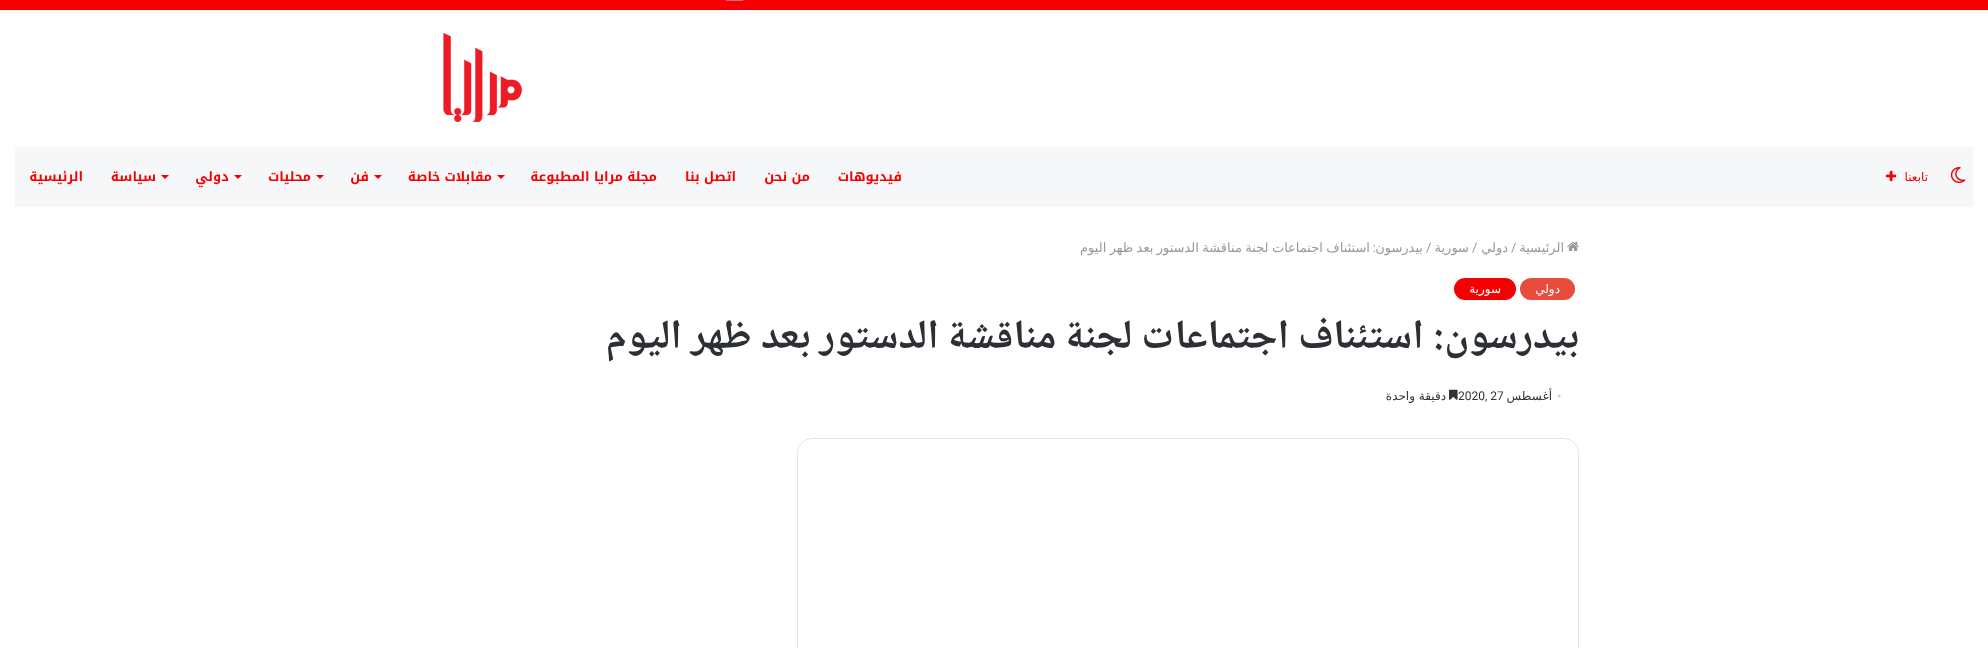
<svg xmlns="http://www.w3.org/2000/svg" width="1988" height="648">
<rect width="100%" height="100%" fill="#fff"/>
<rect width="1988" height="9" fill="#f40000"/>
<rect y="9" width="1988" height="1" fill="#dc0000"/>
<image x="725" y="0" width="19" height="1" href="media/1.png"/>
<image x="443" y="33" width="79" height="89" href="media/2.png"/>
<rect x="15" y="147" width="1958" height="60" fill="#f6f7f9"/>
<image x="1950" y="167" width="16" height="16" href="media/3.png"/>
<text x="1928" y="181" style="font-family:DejaVu Sans;font-size:12px;direction:rtl;fill:#f40000">تابعنا</text>
<image x="1886" y="170" width="11" height="12" href="media/4.png"/>
<text x="902" y="181" style="font-family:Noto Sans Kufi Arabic;font-size:13px;font-weight:bold;direction:rtl;fill:#f40000">فيديوهات</text>
<text x="810" y="181" style="font-family:Noto Sans Kufi Arabic;font-size:13px;font-weight:bold;direction:rtl;fill:#f40000">من نحن</text>
<text x="736" y="181" style="font-family:Noto Sans Kufi Arabic;font-size:13px;font-weight:bold;direction:rtl;fill:#f40000">اتصل بنا</text>
<text x="657" y="181" style="font-family:Noto Sans Kufi Arabic;font-size:13px;font-weight:bold;direction:rtl;fill:#f40000">مجلة مرايا المطبوعة</text>
<path d="M497 175h8l-4 4z" fill="#f40000"/>
<text x="492" y="181" style="font-family:Noto Sans Kufi Arabic;font-size:13px;font-weight:bold;direction:rtl;fill:#f40000">مقابلات خاصة</text>
<path d="M374 175h8l-4 4z" fill="#f40000"/>
<text x="369" y="181" style="font-family:Noto Sans Kufi Arabic;font-size:13px;font-weight:bold;direction:rtl;fill:#f40000">فن</text>
<path d="M316 175h8l-4 4z" fill="#f40000"/>
<text x="311" y="181" style="font-family:Noto Sans Kufi Arabic;font-size:13px;font-weight:bold;direction:rtl;fill:#f40000">محليات</text>
<path d="M234 175h8l-4 4z" fill="#f40000"/>
<text x="229" y="181" style="font-family:Noto Sans Kufi Arabic;font-size:13px;font-weight:bold;direction:rtl;fill:#f40000">دولي</text>
<path d="M161 175h8l-4 4z" fill="#f40000"/>
<text x="156" y="181" style="font-family:Noto Sans Kufi Arabic;font-size:13px;font-weight:bold;direction:rtl;fill:#f40000">سياسة</text>
<text x="83" y="181" style="font-family:Noto Sans Kufi Arabic;font-size:13px;font-weight:bold;direction:rtl;fill:#f40000">الرئيسية</text>
<image x="1567" y="241" width="12" height="11" href="media/5.png"/>
<text x="1564" y="252" style="font-family:DejaVu Sans;font-size:13px;direction:rtl;fill:#999">الرئيسية</text>
<text x="1511" y="252" style="font-family:Roboto;font-size:13px;fill:#999">/</text>
<text x="1508" y="252" style="font-family:DejaVu Sans;font-size:13px;direction:rtl;fill:#999">دولي</text>
<text x="1472" y="252" style="font-family:Roboto;font-size:13px;fill:#999">/</text>
<text x="1469" y="252" style="font-family:DejaVu Sans;font-size:13px;direction:rtl;fill:#999">سورية</text>
<text x="1426" y="252" style="font-family:Roboto;font-size:13px;fill:#999">/</text>
<text x="1423" y="252" style="font-family:DejaVu Sans;font-size:13px;direction:rtl;fill:#999">بيدرسون</text>
<text x="1376" y="252" style="font-family:Roboto;font-size:13px;direction:rtl;fill:#999">:</text>
<text x="1370" y="252" word-spacing="-0.75" style="font-family:DejaVu Sans;font-size:13px;direction:rtl;fill:#999">استئناف اجتماعات لجنة مناقشة الدستور بعد ظهر اليوم</text>
<rect x="1520" y="278" width="55" height="22" rx="11" fill="#e74c3c"/>
<text x="1560" y="293" style="font-family:DejaVu Sans;font-size:12px;direction:rtl;fill:#fff">دولي</text>
<rect x="1454" y="278" width="62" height="22" rx="11" fill="#f40000"/>
<text x="1501" y="293" style="font-family:DejaVu Sans;font-size:12px;direction:rtl;fill:#fff">سورية</text>
<text x="1579" y="348" style="font-family:Noto Naskh Arabic;font-size:41px;font-weight:bold;direction:rtl;fill:#2c2f34">بيدرسون: استئناف اجتماعات لجنة مناقشة الدستور بعد ظهر اليوم</text>
<text x="1557" y="400" style="font-family:Liberation Serif;font-size:12px;fill:#ccc">•</text>
<text x="1552" y="400" style="font-family:DejaVu Sans;font-size:12px;direction:rtl;fill:#333">أغسطس</text>
<text x="1458" y="400" style="font-family:Roboto;font-size:12px;fill:#333">2020, 27</text>
<image x="1449" y="389" width="9" height="11" href="media/6.png"/>
<text x="1446" y="400" style="font-family:DejaVu Sans;font-size:12px;direction:rtl;fill:#333">دقيقة واحدة</text>
<rect x="797.5" y="438.5" width="781" height="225" rx="14.5" fill="none" stroke="#e6e6e6"/>
</svg>
